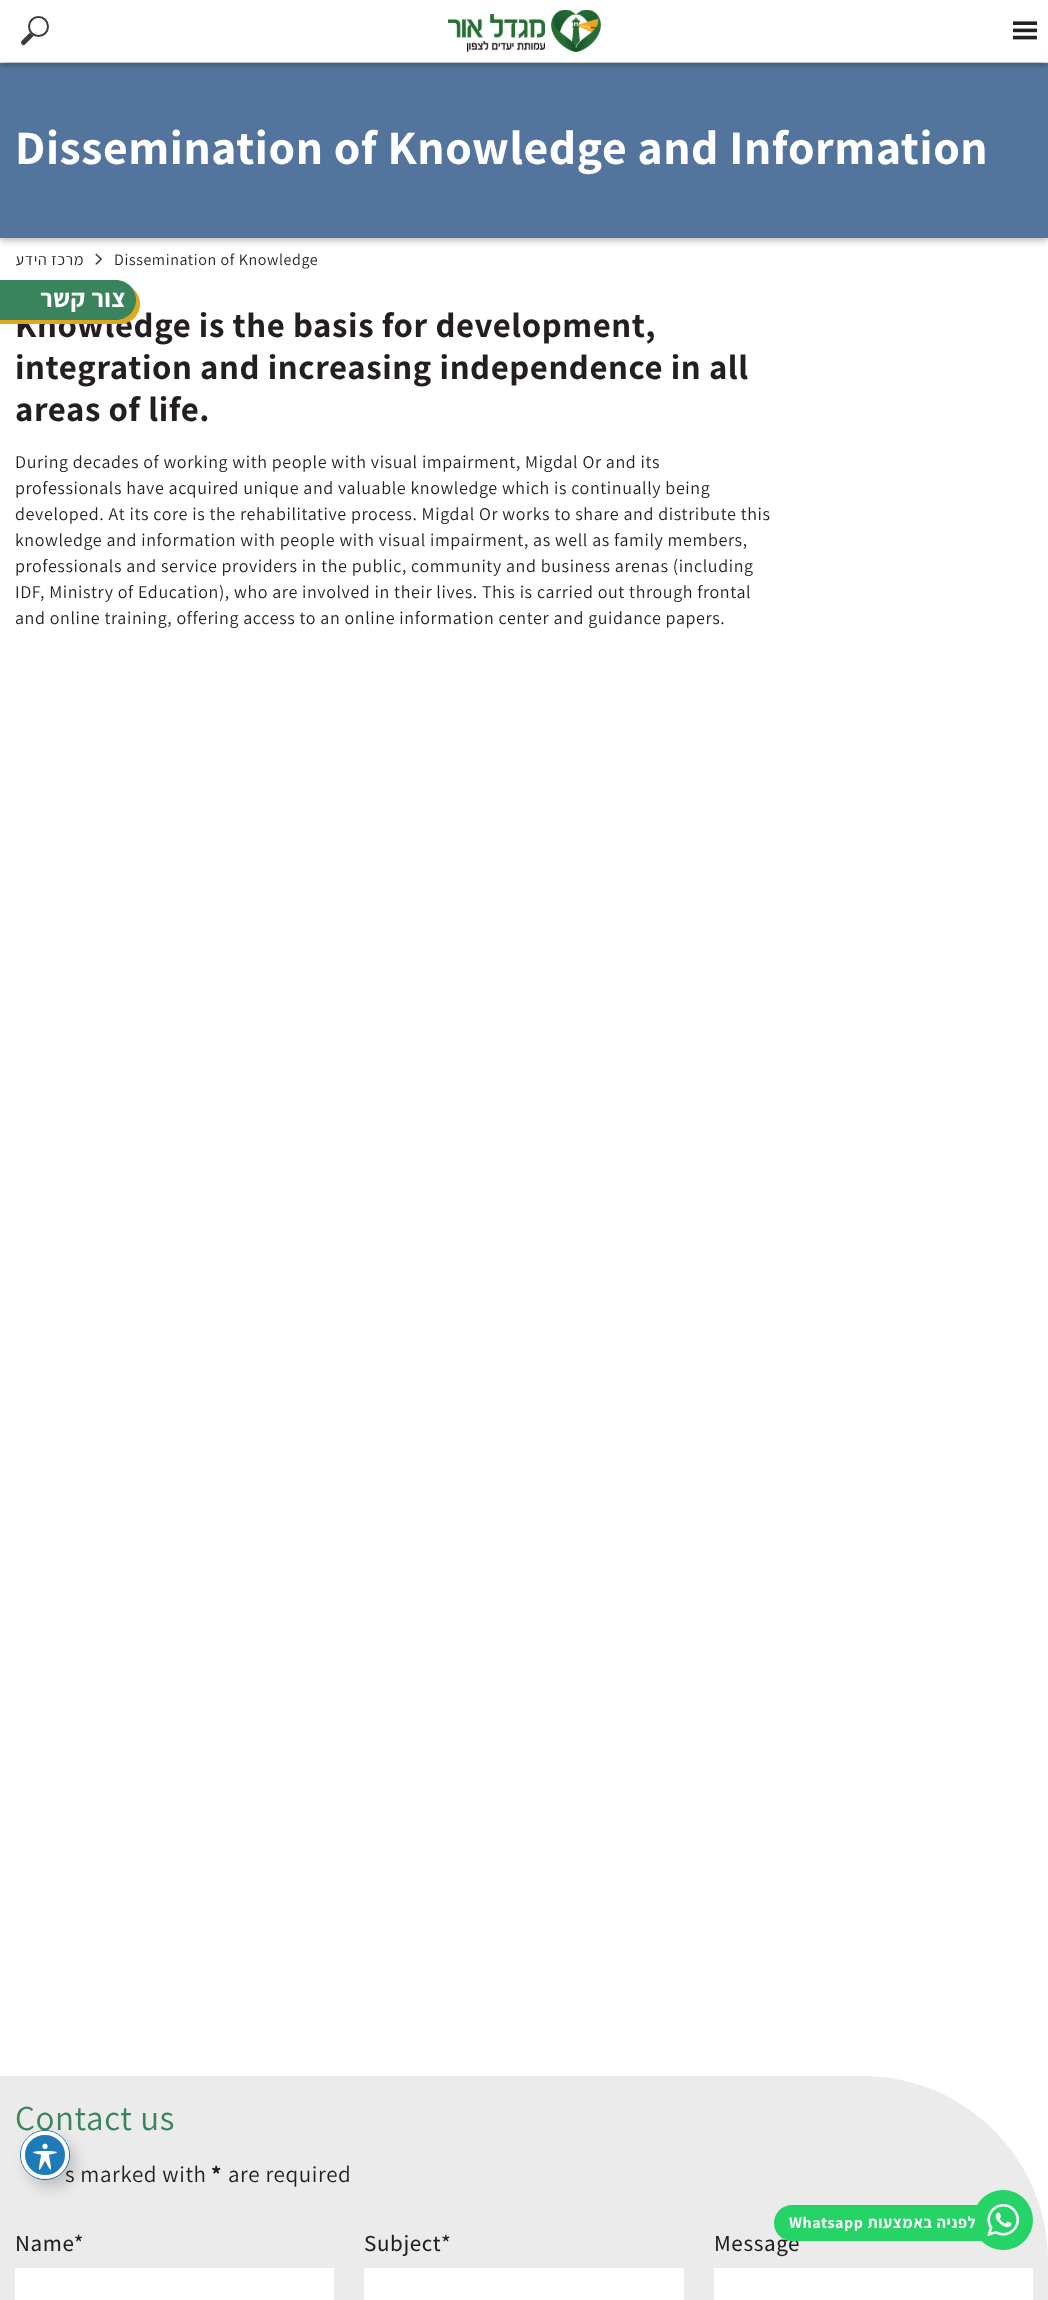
<svg xmlns="http://www.w3.org/2000/svg" width="1048" height="2300">
<defs>
<clipPath id="clip1"><rect x="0" y="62" width="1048" height="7"/></clipPath>
</defs>
<rect width="100%" height="100%" fill="#fff"/>
<rect y="66" width="1048" height="175" fill="#00000040" filter="blur(3px)"/>
<rect y="63" width="1048" height="175" fill="#53749c"/>
<text x="15" y="164" style="font-family:Assistant;font-size:48px;font-weight:bold;letter-spacing:0.6px;fill:#fff">Dissemination of Knowledge and Information</text>
<text x="84" y="265" style="font-family:Assistant;font-size:16px;letter-spacing:0.6px;direction:rtl;fill:#231f20">מרכז הידע</text>
<image x="95" y="253" width="7" height="12" href="media/1.png"/>
<text x="114" y="265" style="font-family:Assistant;font-size:16px;letter-spacing:0.6px;fill:#231f20">Dissemination of Knowledge</text>
<text x="15" y="337" style="font-family:Assistant;font-size:35px;font-weight:bold;letter-spacing:0.6px;fill:#231f20">Knowledge is the basis for development,</text>
<text x="15" y="379" style="font-family:Assistant;font-size:35px;font-weight:bold;letter-spacing:0.6px;fill:#231f20">integration and increasing independence in all</text>
<text x="15" y="421" style="font-family:Assistant;font-size:35px;font-weight:bold;letter-spacing:0.6px;fill:#231f20">areas of life.</text>
<text x="15" y="468" style="font-family:Assistant;font-size:18px;letter-spacing:0.6px;fill:#231f20">During decades of working with people with visual impairment, Migdal Or and its</text>
<text x="15" y="494" style="font-family:Assistant;font-size:18px;letter-spacing:0.6px;fill:#231f20">professionals have acquired unique and valuable knowledge which is continually being</text>
<text x="15" y="520" style="font-family:Assistant;font-size:18px;letter-spacing:0.6px;fill:#231f20">developed. At its core is the rehabilitative process. Migdal Or works to share and distribute this</text>
<text x="15" y="546" style="font-family:Assistant;font-size:18px;letter-spacing:0.6px;fill:#231f20">knowledge and information with people with visual impairment, as well as family members,</text>
<text x="15" y="572" style="font-family:Assistant;font-size:18px;letter-spacing:0.6px;fill:#231f20">professionals and service providers in the public, community and business arenas (including</text>
<text x="15" y="598" style="font-family:Assistant;font-size:18px;letter-spacing:0.6px;fill:#231f20">IDF, Ministry of Education), who are involved in their lives. This is carried out through frontal</text>
<text x="15" y="624" style="font-family:Assistant;font-size:18px;letter-spacing:0.6px;fill:#231f20">and online training, offering access to an online information center and guidance papers.</text>
<rect x="1" y="61" width="1046" height="1" fill="#fff"/>
<g clip-path="url(#clip1)">
<rect y="3" width="1048" height="62" fill="#00000040" filter="blur(3px)"/>
</g>
<path d="M31.5 34.5l-8 8" fill="none" stroke="#3b3b3b" stroke-width="5" stroke-linecap="round"/>
<circle cx="38.5" cy="26.5" r="10.5" fill="#fff"/>
<circle cx="38.5" cy="26.5" r="9.5" fill="none" stroke="#3b3b3b" stroke-width="2"/>
<image x="448" y="10" width="153" height="42" href="media/2.png"/>
<image x="1013" y="21" width="24" height="19" href="media/3.png"/>
<path d="M-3 284h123c11 0 20 9 20 20c0 11-9 20-20 20h-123z" fill="#e1a81f"/>
<path d="M0 280h116c11 0 20 9 20 20c0 11-9 20-20 20h-116z" fill="#39845c"/>
<text x="126" y="307" style="font-family:Assistant;font-size:25px;font-weight:bold;letter-spacing:0.6px;direction:rtl;fill:#fff">צור קשר</text>
<path d="M0 2076h863c102 0 185 83 185 185v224h-1048z" fill="#ebebeb"/>
<circle cx="1003" cy="2220" r="30" fill="#25d366"/>
<text x="714" y="2251" style="font-family:Assistant;font-size:23px;font-weight:500;letter-spacing:0.6px;fill:#231f20">Message</text>
<path d="M792 2205h189v36h-189c-10 0-18-8-18-18c0-10 8-18 18-18z" fill="#25d366"/>
<text x="789" y="2228" style="font-family:Assistant;font-size:16px;font-weight:bold;letter-spacing:0.6px;fill:#fff">Whatsapp</text>
<text x="976" y="2228" style="font-family:Assistant;font-size:16px;font-weight:bold;letter-spacing:0.6px;direction:rtl;fill:#fff">לפניה באמצעות</text>
<image x="987" y="2204" width="32" height="32" href="media/4.png"/>
<text x="15" y="2130" style="font-family:Assistant;font-size:35px;letter-spacing:0.6px;fill:#39845c">Contact us</text>
<text x="65" y="2182" style="font-family:Assistant;font-size:23px;letter-spacing:0.6px;fill:#231f20">s marked with</text>
<text x="211" y="2182" style="font-family:Assistant;font-size:23px;font-weight:bold;letter-spacing:0.6px;fill:#231f20">*</text>
<text x="228" y="2182" style="font-family:Assistant;font-size:23px;letter-spacing:0.6px;fill:#231f20">are required</text>
<text x="15" y="2251" style="font-family:Assistant;font-size:23px;font-weight:500;letter-spacing:0.6px;fill:#231f20">Name*</text>
<rect x="15" y="2268" width="319" height="32" fill="#fff"/>
<text x="364" y="2251" style="font-family:Assistant;font-size:23px;font-weight:500;letter-spacing:0.6px;fill:#231f20">Subject*</text>
<rect x="364" y="2268" width="320" height="32" fill="#fff"/>
<rect x="714" y="2268" width="319" height="32" fill="#fff"/>
<circle cx="45" cy="2155" r="24.5" fill="none" stroke="#1e7ab9"/>
<rect x="27" y="2139" width="48" height="48" rx="24" fill="#00000033" filter="blur(8px)"/>
<circle cx="45" cy="2155" r="22" fill="#1e7ab9" stroke="#fff" stroke-width="4"/>
<image x="33" y="2143" width="24" height="27" href="media/5.png"/>
</svg>
